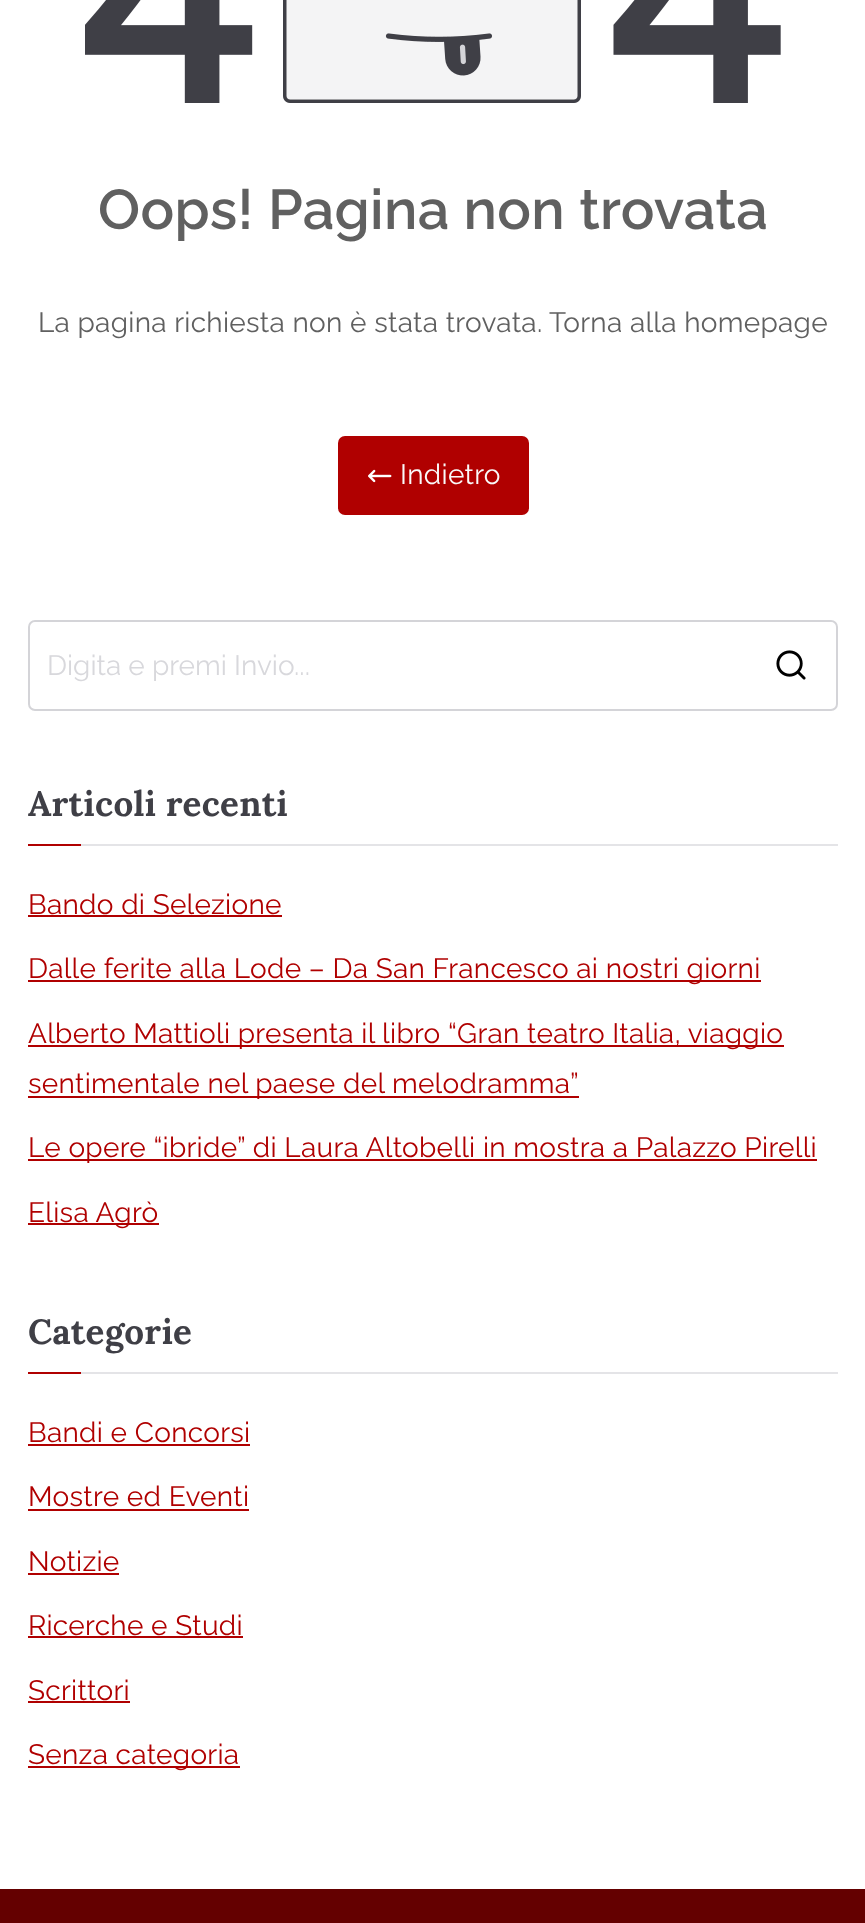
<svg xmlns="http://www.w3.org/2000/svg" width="865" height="1923">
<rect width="100%" height="100%" fill="#fff"/>
<image x="85" y="0" width="696" height="103" href="media/1.png"/>
<text x="98" y="229" style="font-family:Raleway;font-size:56px;font-weight:600;letter-spacing:0.28px;fill:#606060">Oops! Pagina non trovata</text>
<text x="38" y="332" style="font-family:Raleway;font-size:28px;letter-spacing:0.28px;fill:#606060">La pagina richiesta non è stata trovata. Torna alla homepage</text>
<rect x="338" y="436" width="191" height="79" rx="7" fill="#b00000"/>
<image x="368" y="469" width="24" height="14" href="media/2.png"/>
<text x="400" y="484" style="font-family:Raleway;font-size:28px;letter-spacing:0.28px;fill:#fafafa">Indietro</text>
<rect x="29" y="621" width="808" height="89" rx="6" fill="none" stroke="#d4d4d8" stroke-width="2"/>
<text x="47" y="675" style="font-family:Raleway;font-size:28px;fill:#d8d8dc">Digita e premi Invio...</text>
<image x="776" y="650" width="30" height="30" href="media/3.png"/>
<rect x="81" y="844" width="757" height="2" fill="#e4e4e7"/>
<text x="28" y="816" style="font-family:Lora;font-size:35px;font-weight:bold;letter-spacing:0.28px;fill:#3f3f46">Articoli recenti</text>
<rect x="28" y="844" width="53" height="2" fill="#b00000"/>
<text x="28" y="914" style="font-family:Raleway;font-size:28px;letter-spacing:0.28px;fill:#b00000">Bando di Selezione</text>
<rect x="28" y="915" width="254" height="2" fill="#b00000"/>
<rect x="28" y="980" width="733" height="2" fill="#b00000"/>
<text x="28" y="978" style="font-family:Raleway;font-size:28px;letter-spacing:0.28px;fill:#b00000">Dalle ferite alla Lode – Da San Francesco ai nostri giorni</text>
<rect x="28" y="1045" width="756" height="2" fill="#b00000"/>
<text x="28" y="1043" style="font-family:Raleway;font-size:28px;letter-spacing:0.28px;fill:#b00000">Alberto Mattioli presenta il libro “Gran teatro Italia, viaggio</text>
<rect x="28" y="1096" width="551" height="2" fill="#b00000"/>
<text x="28" y="1093" style="font-family:Raleway;font-size:28px;letter-spacing:0.28px;fill:#b00000">sentimentale nel paese del melodramma”</text>
<rect x="28" y="1159" width="789" height="2" fill="#b00000"/>
<text x="28" y="1157" style="font-family:Raleway;font-size:28px;letter-spacing:0.28px;fill:#b00000">Le opere “ibride” di Laura Altobelli in mostra a Palazzo Pirelli</text>
<rect x="28" y="1223" width="131" height="2" fill="#b00000"/>
<text x="28" y="1222" style="font-family:Raleway;font-size:28px;letter-spacing:0.28px;fill:#b00000">Elisa Agrò</text>
<rect x="81" y="1372" width="757" height="2" fill="#e4e4e7"/>
<text x="28" y="1344" style="font-family:Lora;font-size:35px;font-weight:bold;letter-spacing:0.28px;fill:#3f3f46">Categorie</text>
<rect x="28" y="1372" width="53" height="2" fill="#b00000"/>
<text x="28" y="1442" style="font-family:Raleway;font-size:28px;letter-spacing:0.28px;fill:#b00000">Bandi e Concorsi</text>
<rect x="28" y="1444" width="222" height="2" fill="#b00000"/>
<text x="28" y="1506" style="font-family:Raleway;font-size:28px;letter-spacing:0.28px;fill:#b00000">Mostre ed Eventi</text>
<rect x="28" y="1509" width="221" height="2" fill="#b00000"/>
<text x="28" y="1571" style="font-family:Raleway;font-size:28px;letter-spacing:0.28px;fill:#b00000">Notizie</text>
<rect x="28" y="1573" width="91" height="2" fill="#b00000"/>
<text x="28" y="1635" style="font-family:Raleway;font-size:28px;letter-spacing:0.28px;fill:#b00000">Ricerche e Studi</text>
<rect x="28" y="1636" width="215" height="2" fill="#b00000"/>
<text x="28" y="1700" style="font-family:Raleway;font-size:28px;letter-spacing:0.28px;fill:#b00000">Scrittori</text>
<rect x="28" y="1701" width="102" height="2" fill="#b00000"/>
<rect x="28" y="1766" width="212" height="2" fill="#b00000"/>
<text x="28" y="1764" style="font-family:Raleway;font-size:28px;letter-spacing:0.28px;fill:#b00000">Senza categoria</text>
<rect y="1889" width="865" height="34" fill="#640000"/>
</svg>
